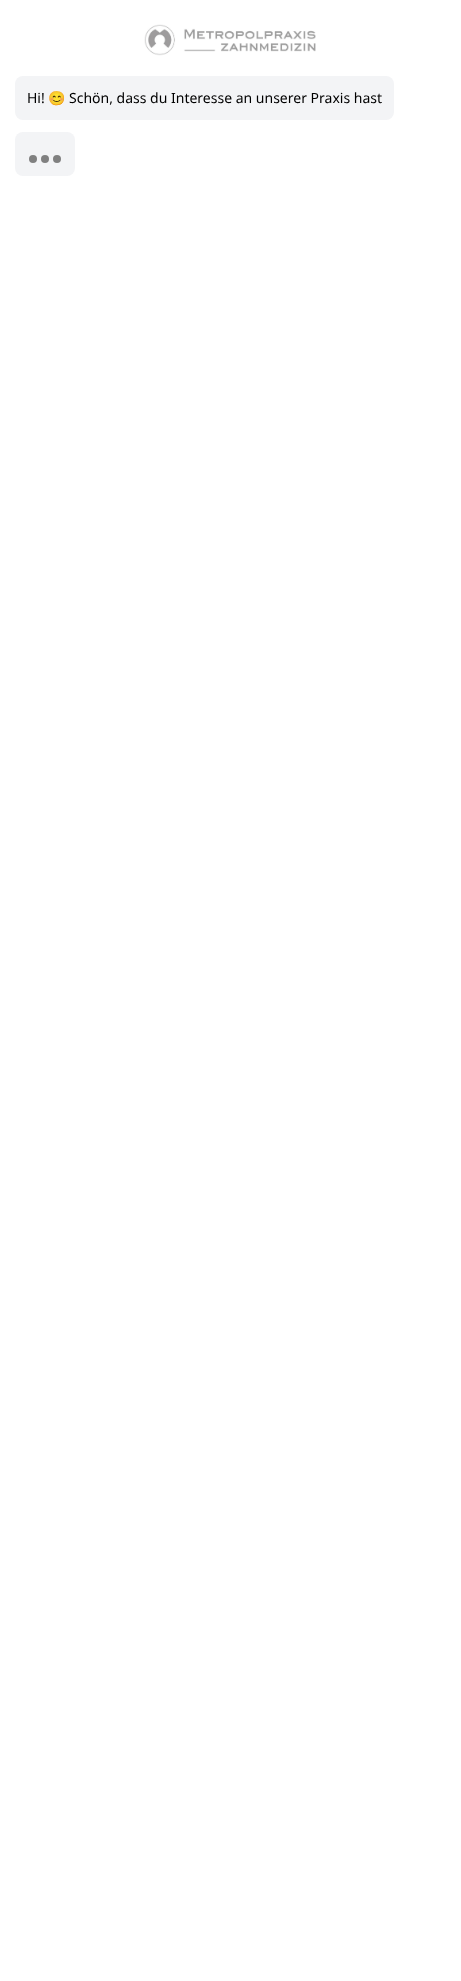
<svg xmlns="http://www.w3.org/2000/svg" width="461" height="1981">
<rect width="100%" height="100%" fill="#fff"/>
<image x="144" y="24" width="172" height="32" href="media/1.png"/>
<rect x="15" y="76" width="379" height="44" rx="8" fill="#f3f4f6"/>
<text x="27" y="103" style="font-family:Noto Sans;font-size:14px;fill:#000">Hi!</text>
<text x="48" y="103" style="font-family:Noto Color Emoji;font-size:14px;fill:#000">😊</text>
<text x="69" y="103" style="font-family:Noto Sans;font-size:14px;fill:#000">Schön, dass du Interesse an unserer Praxis hast</text>
<rect x="15" y="132" width="60" height="44" rx="8" fill="#f3f4f6"/>
<circle cx="33" cy="159" r="4" fill="#808080"/>
<circle cx="45" cy="159" r="4" fill="#808080"/>
<circle cx="57" cy="159" r="4" fill="#808080"/>
</svg>
